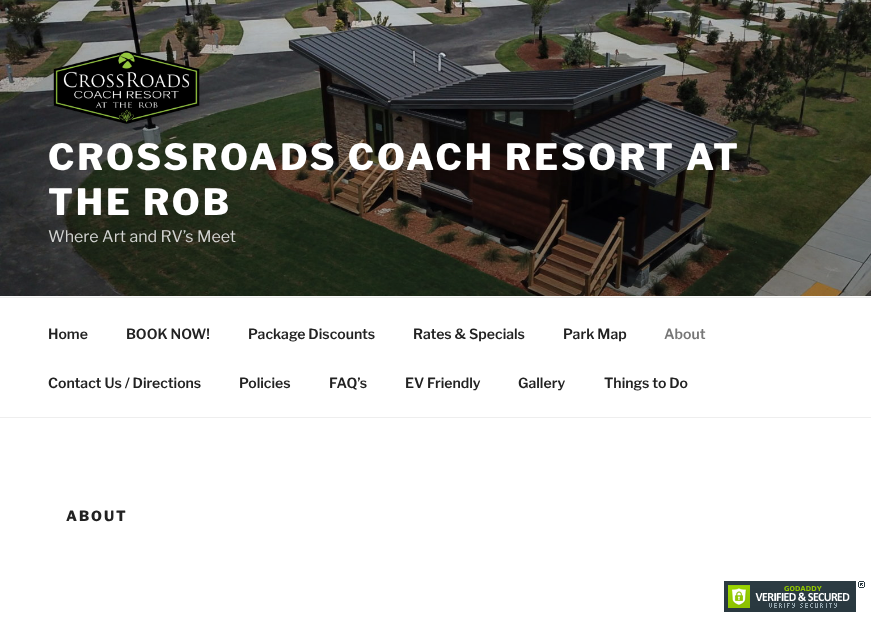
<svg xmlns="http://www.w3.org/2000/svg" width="871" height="618">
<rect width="100%" height="100%" fill="#fff"/>
<rect y="296" width="871" height="1" fill="#fafafa"/>
<image x="0" y="0" width="871" height="296" href="media/1.png"/>
<image x="53" y="50" width="147" height="74" href="media/2.png"/>
<text x="48" y="170" style="font-family:Libre Franklin;font-size:36px;font-weight:100;letter-spacing:2.9px;fill:#fff">CROSSROADS COACH RESORT AT</text>
<text x="48" y="215" style="font-family:Libre Franklin;font-size:36px;font-weight:100;letter-spacing:2.9px;fill:#fff">THE ROB</text>
<text x="48" y="242" style="font-family:'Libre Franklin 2';font-size:16px;font-weight:100;fill:#d3d4d2">Where Art and RV’s Meet</text>
<rect y="297" width="871" height="1" fill="#eee"/>
<rect y="417" width="871" height="1" fill="#eee"/>
<text x="48" y="339" style="font-family:'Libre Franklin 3';font-size:14px;font-weight:100;fill:#222">Home</text>
<text x="126" y="339" style="font-family:'Libre Franklin 3';font-size:14px;font-weight:100;fill:#222">BOOK NOW!</text>
<text x="248" y="339" style="font-family:'Libre Franklin 3';font-size:14px;font-weight:100;fill:#222">Package Discounts</text>
<text x="413" y="339" style="font-family:'Libre Franklin 3';font-size:14px;font-weight:100;fill:#222">Rates &amp; Specials</text>
<text x="563" y="339" style="font-family:'Libre Franklin 3';font-size:14px;font-weight:100;fill:#222">Park Map</text>
<text x="664" y="339" style="font-family:'Libre Franklin 3';font-size:14px;font-weight:100;fill:#767676">About</text>
<text x="48" y="388" style="font-family:'Libre Franklin 3';font-size:14px;font-weight:100;fill:#222">Contact Us / Directions</text>
<text x="239" y="388" style="font-family:'Libre Franklin 3';font-size:14px;font-weight:100;fill:#222">Policies</text>
<text x="329" y="388" style="font-family:'Libre Franklin 3';font-size:14px;font-weight:100;fill:#222">FAQ’s</text>
<text x="405" y="388" style="font-family:'Libre Franklin 3';font-size:14px;font-weight:100;fill:#222">EV Friendly</text>
<text x="518" y="388" style="font-family:'Libre Franklin 3';font-size:14px;font-weight:100;fill:#222">Gallery</text>
<text x="604" y="388" style="font-family:'Libre Franklin 3';font-size:14px;font-weight:100;fill:#222">Things to Do</text>
<text x="66" y="521" style="font-family:Libre Franklin;font-size:14px;font-weight:100;letter-spacing:2px;fill:#222">ABOUT</text>
<image x="724" y="581" width="141" height="31" href="media/3.png"/>
</svg>
